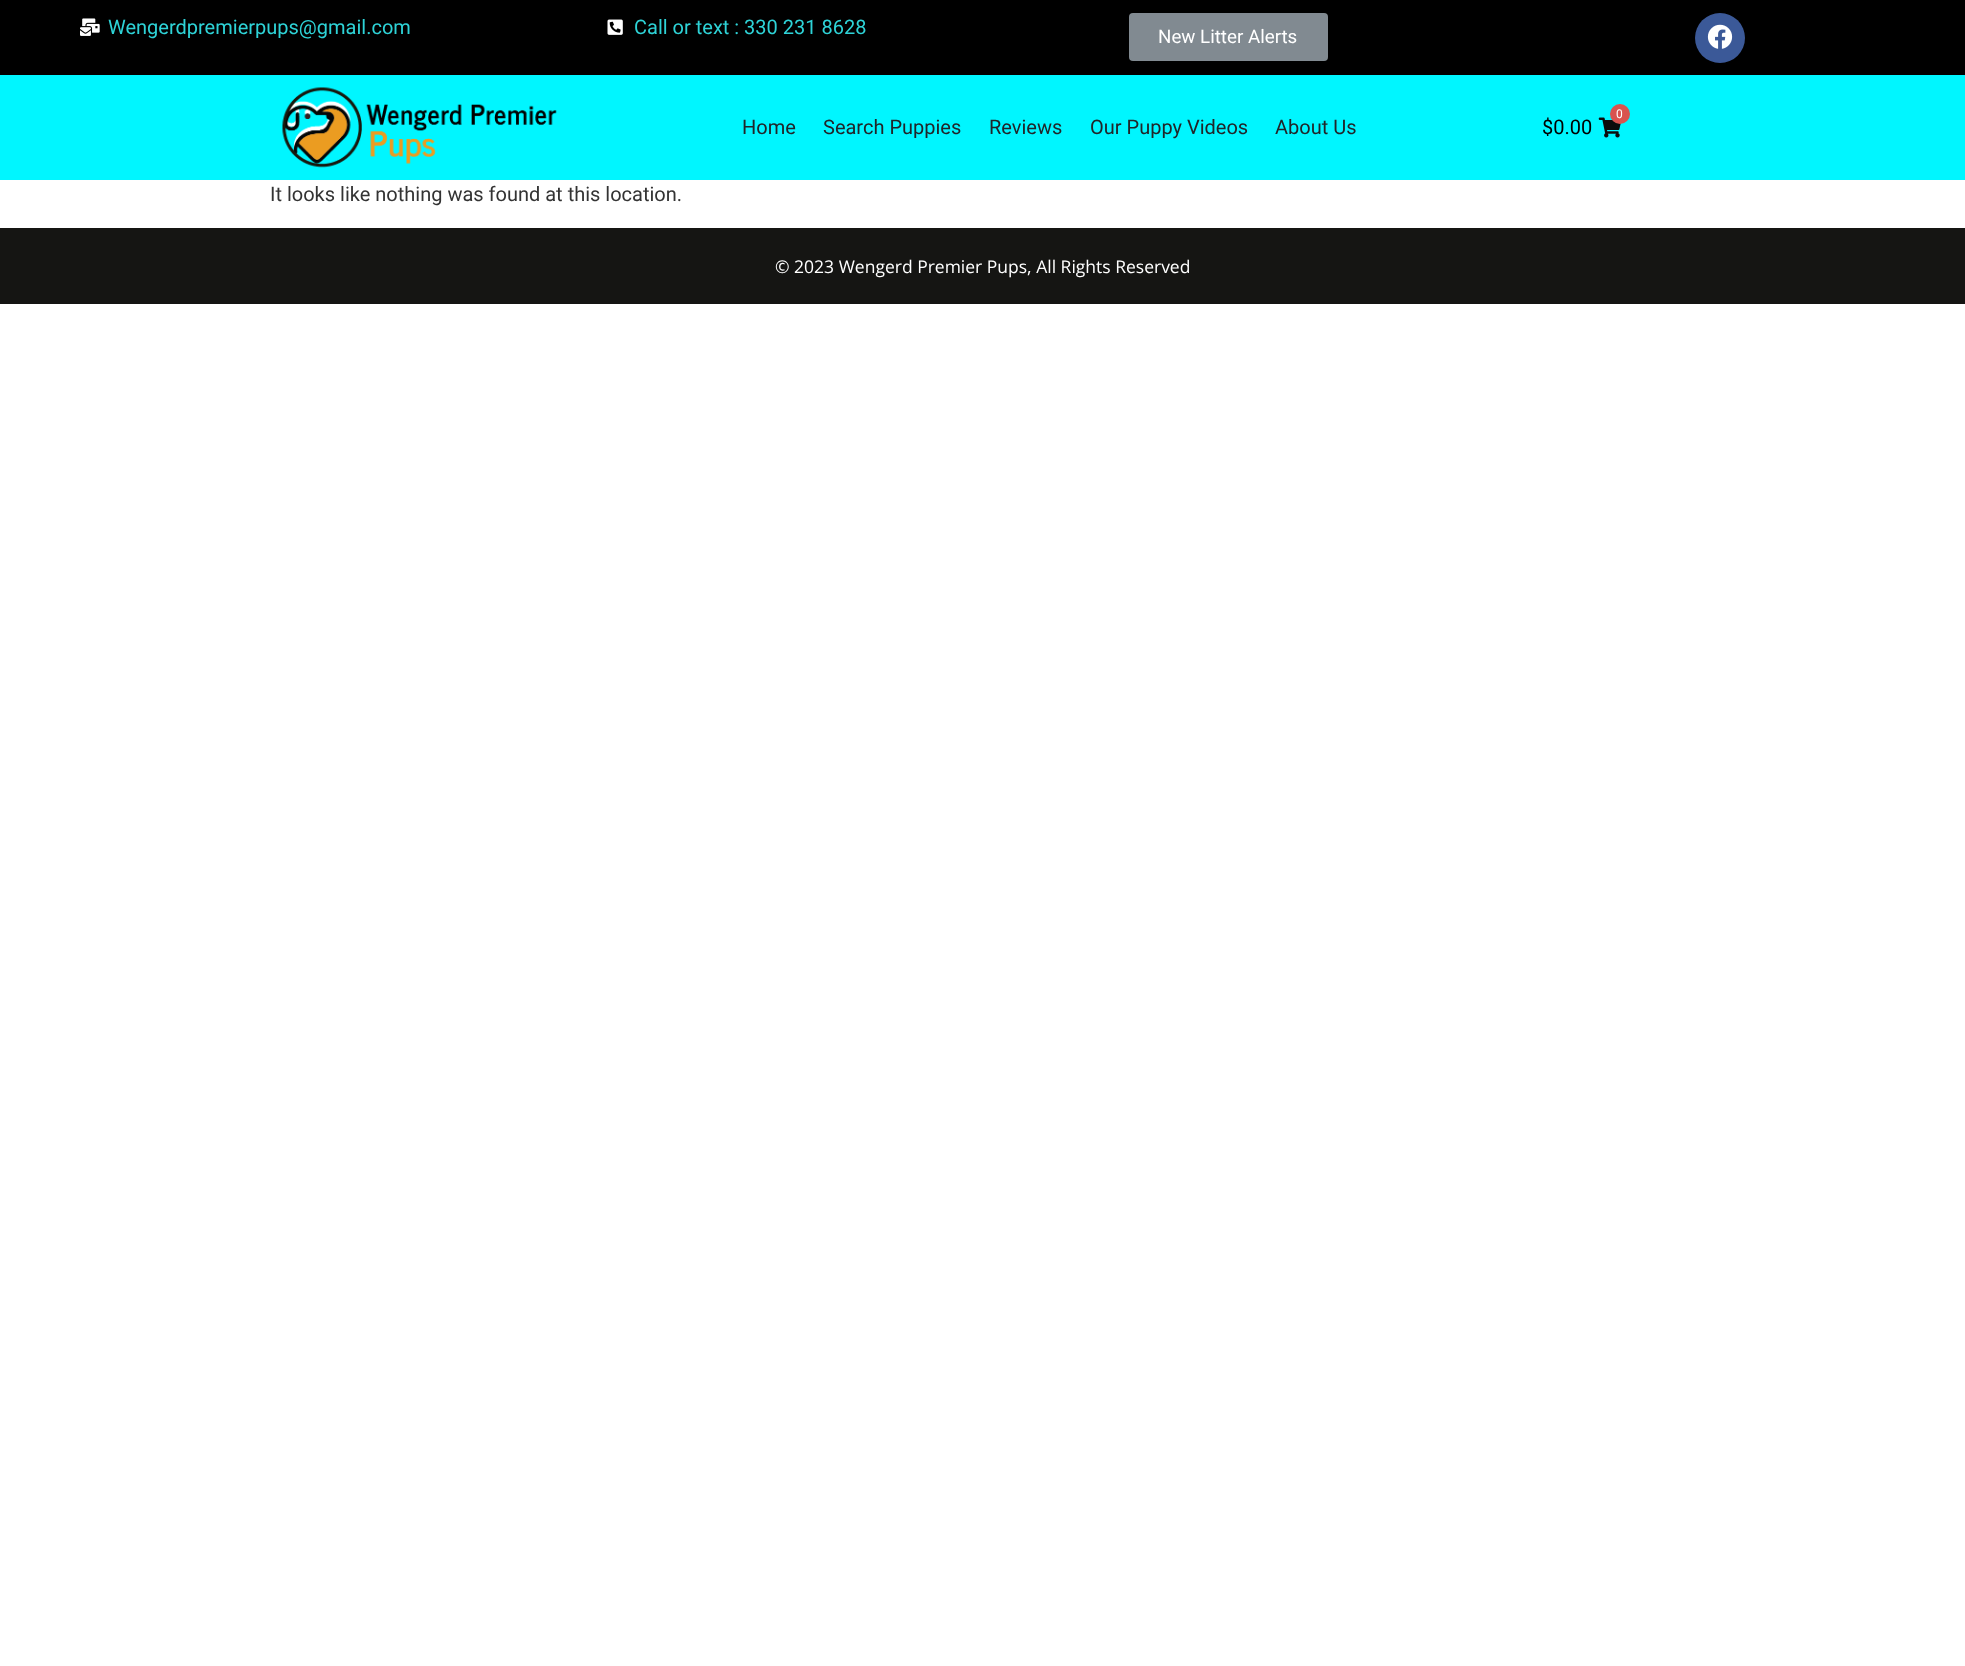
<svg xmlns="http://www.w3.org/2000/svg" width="1965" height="1666">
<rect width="100%" height="100%" fill="#fff"/>
<rect width="1965" height="75" fill="#000"/>
<image x="80" y="18" width="20" height="18" href="media/1.png"/>
<text x="108" y="34" style="font-family:Roboto;font-size:20px;fill:#2ed3d7">Wengerdpremierpups@gmail.com</text>
<image x="607" y="19" width="16" height="16" href="media/2.png"/>
<text x="634" y="34" style="font-family:Roboto;font-size:20px;fill:#2ed3d7">Call or text : 330 231 8628</text>
<rect x="1129" y="13" width="199" height="48" rx="4" fill="#818a91"/>
<text x="1158" y="43" style="font-family:Roboto;font-size:18.75px;fill:#fff">New Litter Alerts</text>
<circle cx="1720" cy="38" r="25" fill="#3b5998"/>
<image x="1707" y="24" width="26" height="25" href="media/3.png"/>
<rect y="75" width="1965" height="105" fill="#00f6ff"/>
<image x="282" y="87" width="275" height="81" href="media/4.png"/>
<text x="742" y="134" style="font-family:Roboto;font-size:20px;fill:#212529">Home</text>
<text x="823" y="134" style="font-family:Roboto;font-size:20px;fill:#212529">Search Puppies</text>
<text x="989" y="134" style="font-family:Roboto;font-size:20px;fill:#212529">Reviews</text>
<text x="1090" y="134" style="font-family:Roboto;font-size:20px;fill:#212529">Our Puppy Videos</text>
<text x="1275" y="134" style="font-family:Roboto;font-size:20px;fill:#212529">About Us</text>
<image x="1598" y="117" width="23" height="21" href="media/5.png"/>
<circle cx="1620" cy="114" r="10" fill="#d9534f"/>
<text x="1616" y="118" style="font-family:Roboto;font-size:12px;fill:#fff">0</text>
<text x="1542" y="134" style="font-family:Roboto;font-size:20px;fill:#000">$0.00</text>
<text x="270" y="201" style="font-family:Roboto;font-size:20px;fill:#333">It looks like nothing was found at this location.</text>
<rect y="228" width="1965" height="76" fill="#151513"/>
<text x="775" y="273" style="font-family:Open Sans;font-size:17.5px;fill:#fff">© 2023 Wengerd Premier Pups, All Rights Reserved</text>
</svg>
